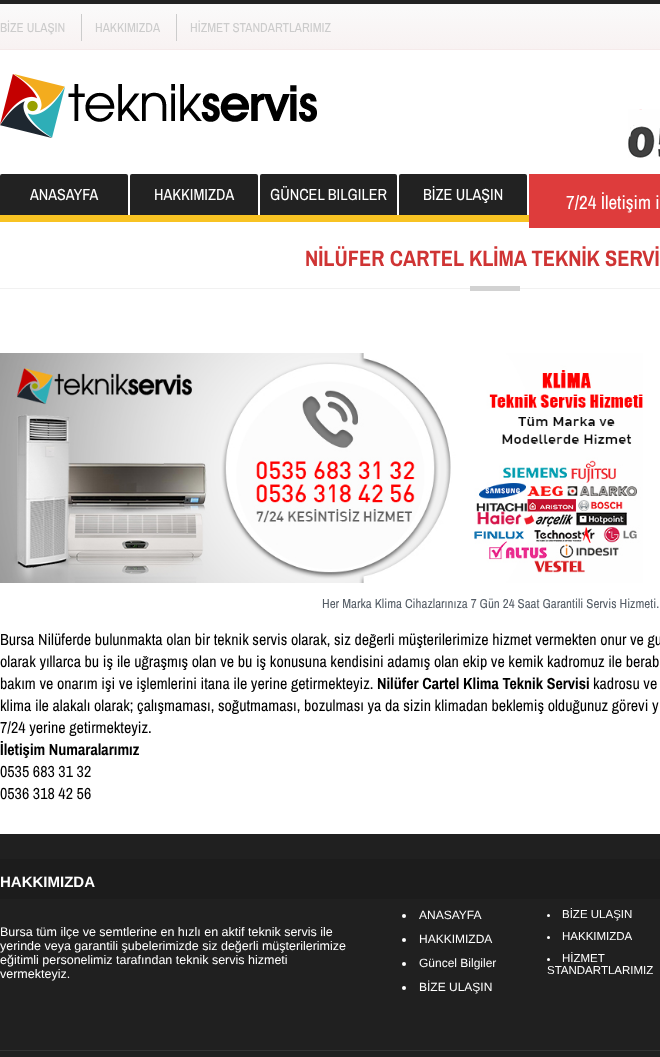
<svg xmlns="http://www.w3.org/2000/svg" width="660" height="1057">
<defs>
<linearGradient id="g1" gradientUnits="userSpaceOnUse" x1="330" y1="4" x2="330" y2="49"><stop offset="0" stop-color="#fafafa"/><stop offset="1" stop-color="#f8f2f2"/></linearGradient>
</defs>
<rect width="100%" height="100%" fill="#fff"/>
<rect y="4" width="660" height="45" fill="url(#g1)"/>
<rect width="660" height="4" fill="#222"/>
<rect y="49" width="660" height="1" fill="#f5eaea"/>
<text x="0" y="32" style="font-family:Archivo Narrow;font-size:13px;fill:#ccc">BİZE ULAŞIN</text>
<rect x="81" y="14" width="1" height="27" fill="#ccc"/>
<text x="95" y="32" style="font-family:Archivo Narrow;font-size:13px;fill:#ccc">HAKKIMIZDA</text>
<rect x="176" y="14" width="1" height="27" fill="#ccc"/>
<text x="190" y="32" style="font-family:Archivo Narrow;font-size:13px;fill:#ccc">HİZMET STANDARTLARIMIZ</text>
<image x="0" y="74" width="317" height="64" href="media/1.png"/>
<image x="628" y="109" width="32" height="49" href="media/2.png"/>
<rect y="174" width="128" height="48" rx="2" fill="#222"/>
<text x="30" y="200" style="font-family:Archivo Narrow;font-size:16px;fill:#fff">ANASAYFA</text>
<rect x="130" y="174" width="128" height="48" rx="2" fill="#222"/>
<text x="154" y="200" style="font-family:Archivo Narrow;font-size:16px;fill:#fff">HAKKIMIZDA</text>
<rect x="260" y="174" width="137" height="48" rx="2" fill="#222"/>
<text x="270" y="200" style="font-family:Archivo Narrow;font-size:16px;fill:#fff">GÜNCEL BILGILER</text>
<rect x="399" y="174" width="128" height="48" rx="2" fill="#222"/>
<text x="423" y="200" style="font-family:Archivo Narrow;font-size:16px;fill:#fff">BİZE ULAŞIN</text>
<rect x="529" y="174" width="131" height="54" fill="#de3c3c"/>
<text x="566" y="209" style="font-family:Archivo Narrow;font-size:19px;fill:#fff">7/24 İletişim i</text>
<rect y="215" width="529" height="7" fill="#f8c323"/>
<rect y="288" width="660" height="1" fill="#f1f1f1"/>
<text x="305" y="266" style="font-family:Archivo Narrow;font-size:22.4px;font-weight:bold;fill:#cf3434">NİLÜFER CARTEL KLİMA TEKNİK SERVİ</text>
<rect x="470" y="286" width="50" height="5" fill="#d2d2d2"/>
<image x="0" y="353" width="643" height="230" href="media/3.png"/>
<text x="322" y="608" style="font-family:Archivo Narrow;font-size:13px;fill:#555d66">Her Marka Klima Cihazlarınıza 7 Gün 24 Saat Garantili Servis Hizmeti.</text>
<text x="0" y="645" style="font-family:Archivo Narrow;font-size:16px;fill:#000">Bursa Nilüferde bulunmakta olan bir teknik servis olarak, siz değerli müşterilerimize hizmet vermekten onur ve gu</text>
<text x="0" y="667" style="font-family:Archivo Narrow;font-size:16px;fill:#000">olarak yıllarca bu iş ile uğraşmış olan ve bu iş konusuna kendisini adamış olan ekip ve kemik kadromuz ile berab</text>
<text x="0" y="689" style="font-family:Archivo Narrow;font-size:16px;fill:#000">bakım ve onarım işi ve işlemlerini itana ile yerine getirmekteyiz.</text>
<text x="377" y="689" style="font-family:Archivo Narrow;font-size:16px;font-weight:bold;fill:#000">Nilüfer Cartel Klima Teknik Servisi</text>
<text x="593" y="689" style="font-family:Archivo Narrow;font-size:16px;fill:#000">kadrosu ve</text>
<text x="0" y="711" style="font-family:Archivo Narrow;font-size:16px;fill:#000">klima ile alakalı olarak; çalışmaması, soğutmaması, bozulması ya da sizin klimadan beklemiş olduğunuz görevi y</text>
<text x="0" y="733" style="font-family:Archivo Narrow;font-size:16px;fill:#000">7/24 yerine getirmekteyiz.</text>
<text x="0" y="755" style="font-family:Archivo Narrow;font-size:16px;font-weight:bold;fill:#000">İletişim Numaralarımız</text>
<text x="0" y="777" style="font-family:Archivo Narrow;font-size:16px;fill:#000">0535 683 31 32</text>
<text x="0" y="799" style="font-family:Archivo Narrow;font-size:16px;fill:#000">0536 318 42 56</text>
<rect y="834" width="660" height="223" fill="#202020"/>
<rect y="859" width="660" height="40" fill="#1c1c1c"/>
<text x="0" y="887" style="font-family:Liberation Sans;font-size:15px;font-weight:bold;fill:#fff">HAKKIMIZDA</text>
<text x="0" y="936" style="font-family:Liberation Sans;font-size:12.5px;fill:#fff">Bursa tüm ilçe ve semtlerine en hızlı en aktif teknik servis ile</text>
<text x="0" y="950" style="font-family:Liberation Sans;font-size:12.5px;fill:#fff">yerinde veya garantili şubelerimizde siz değerli müşterilerimize</text>
<text x="0" y="964" style="font-family:Liberation Sans;font-size:12.5px;fill:#fff">eğitimli personelimiz tarafından teknik servis hizmeti</text>
<text x="0" y="978" style="font-family:Liberation Sans;font-size:12.5px;fill:#fff">vermekteyiz.</text>
<circle cx="404" cy="916" r="2" fill="#fff"/>
<text x="419" y="919" style="font-family:Liberation Sans;font-size:12px;fill:#fff">ANASAYFA</text>
<circle cx="404" cy="940" r="2" fill="#fff"/>
<text x="419" y="943" style="font-family:Liberation Sans;font-size:12px;fill:#fff">HAKKIMIZDA</text>
<circle cx="404" cy="964" r="2" fill="#fff"/>
<text x="419" y="967" style="font-family:Liberation Sans;font-size:12px;fill:#fff">Güncel Bilgiler</text>
<circle cx="404" cy="988" r="2" fill="#fff"/>
<text x="419" y="991" style="font-family:Liberation Sans;font-size:12px;fill:#fff">BİZE ULAŞIN</text>
<circle cx="548.5" cy="915.5" r="1.5" fill="#fff"/>
<text x="562" y="918" style="font-family:Liberation Sans;font-size:11.5px;fill:#fff">BİZE ULAŞIN</text>
<circle cx="548.5" cy="937.5" r="1.5" fill="#fff"/>
<text x="562" y="940" style="font-family:Liberation Sans;font-size:11.5px;fill:#fff">HAKKIMIZDA</text>
<circle cx="548.5" cy="959.5" r="1.5" fill="#fff"/>
<text x="562" y="962" style="font-family:Liberation Sans;font-size:11.5px;fill:#fff">HİZMET</text>
<text x="547" y="974" style="font-family:Liberation Sans;font-size:11.5px;fill:#fff">STANDARTLARIMIZ</text>
<rect y="1050" width="660" height="1" fill="#333"/>
</svg>
